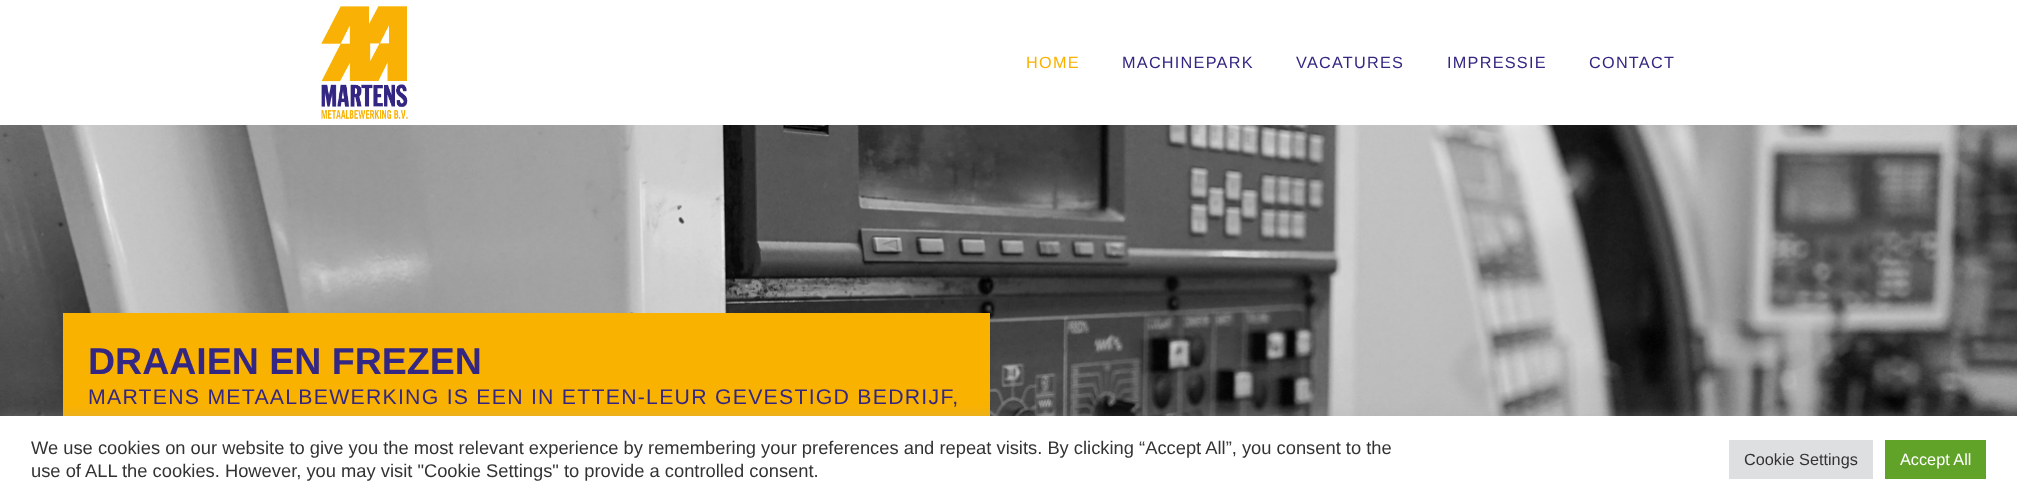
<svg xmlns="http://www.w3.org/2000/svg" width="2017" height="502">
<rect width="100%" height="100%" fill="#fff"/>
<image x="321" y="6" width="87" height="113" href="media/1.png"/>
<text x="1026" y="68" style="font-family:Liberation Sans;font-size:16.25px;letter-spacing:1.25px;fill:#fab200">HOME</text>
<text x="1122" y="68" style="font-family:Liberation Sans;font-size:16.25px;letter-spacing:1.25px;fill:#342783">MACHINEPARK</text>
<text x="1296" y="68" style="font-family:Liberation Sans;font-size:16.25px;letter-spacing:1.25px;fill:#342783">VACATURES</text>
<text x="1447" y="68" style="font-family:Liberation Sans;font-size:16.25px;letter-spacing:1.25px;fill:#342783">IMPRESSIE</text>
<text x="1589" y="68" style="font-family:Liberation Sans;font-size:16.25px;letter-spacing:1.25px;fill:#342783">CONTACT</text>
<image x="0" y="125" width="2017" height="291" href="media/2.png"/>
<rect x="63" y="313" width="927" height="103" fill="#fab200"/>
<text x="88" y="374" style="font-family:Liberation Sans;font-size:37.5px;font-weight:bold;fill:#342783">DRAAIEN EN FREZEN</text>
<text x="88" y="404" style="font-family:Liberation Sans;font-size:21.25px;letter-spacing:1.25px;fill:#342783">MARTENS METAALBEWERKING IS EEN IN ETTEN-LEUR GEVESTIGD BEDRIJF,</text>
<rect y="415" width="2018" height="86" fill="#acabab4d" filter="blur(6px)"/>
<rect y="416" width="2017" height="86" fill="#fff"/>
<text x="31" y="454" style="font-family:Liberation Sans;font-size:18.33px;fill:#333">We use cookies on our website to give you the most relevant experience by remembering your preferences and repeat visits. By clicking “Accept All”, you consent to the</text>
<text x="31" y="477" style="font-family:Liberation Sans;font-size:18.33px;fill:#333">use of ALL the cookies. However, you may visit "Cookie Settings" to provide a controlled consent.</text>
<rect x="1729" y="440" width="144" height="39" fill="#dedfe0"/>
<text x="1744" y="465" style="font-family:Liberation Sans;font-size:16.25px;fill:#333">Cookie Settings</text>
<rect x="1885" y="440" width="101" height="39" fill="#61a229"/>
<text x="1900" y="465" style="font-family:Liberation Sans;font-size:16.25px;fill:#fff">Accept All</text>
</svg>
